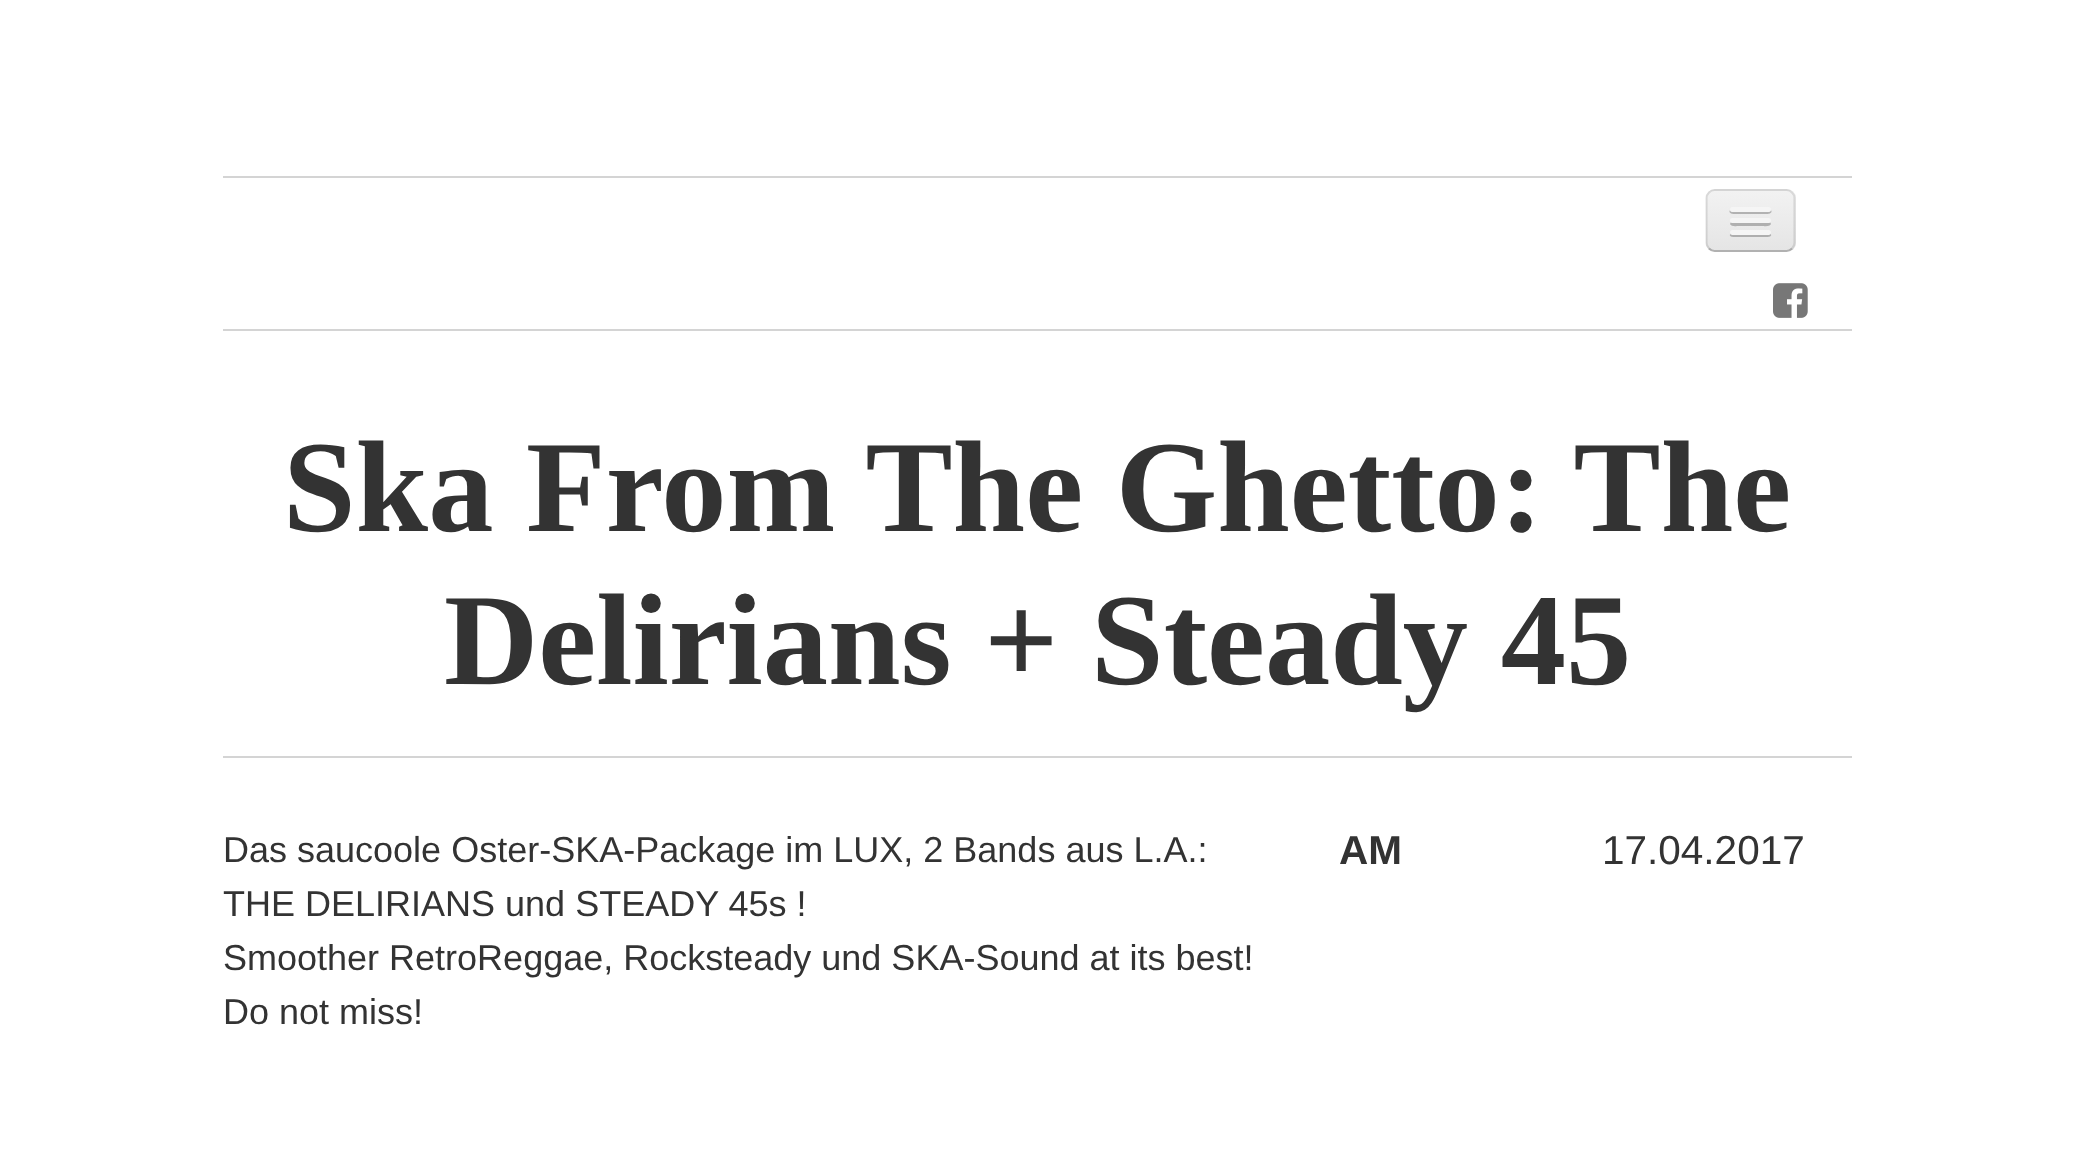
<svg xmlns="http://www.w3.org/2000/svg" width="2073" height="1175">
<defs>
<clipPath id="clip1"><rect x="1706" y="189" width="90" height="63" rx="9"/></clipPath>
<linearGradient id="g1" gradientUnits="userSpaceOnUse" x1="1751" y1="191" x2="1751" y2="250"><stop offset="0" stop-color="#f2f2f2"/><stop offset="1" stop-color="#e5e5e5"/></linearGradient>
</defs>
<rect width="100%" height="100%" fill="#fff"/>
<rect x="223" y="176" width="1629" height="2" fill="#d4d4d4"/>
<rect x="223" y="329" width="1629" height="2" fill="#d4d4d4"/>
<rect x="1706" y="189" width="90" height="63" rx="9" fill="#ededed"/>
<g clip-path="url(#clip1)">
<rect x="1706" y="191" width="90" height="59" fill="url(#g1)"/>
</g>
<path d="M1792 248.5c-1.5 1.5-3.5 2.5-5.5 2.5h-72c-2 0-4-1-5.5-2.5" fill="none" stroke="#00000040" stroke-width="2.2"/>
<path d="M1709 248.5c-1.5-1.5-2.5-3.5-2.5-5.5v-45c0-2 1-4 2.5-5.5c1.5-1.5 3.5-2.5 5.5-2.5h72c2 0 4 1 5.5 2.5c1.5 1.5 2.5 3.5 2.5 5.5v45c0 2-1 4-2.5 5.5" fill="none" stroke="#0000001a" stroke-width="2.2"/>
<path d="M1730 210c-3 5 8 4 8 4h24c1 0 12 1 9-4c-1 1-2 2-3 2h-36c0 0-1-1-2-2z" fill="#b2b2b2"/>
<rect x="1730" y="207" width="41" height="5" rx="2.5" fill="#f5f5f5"/>
<path d="M1731 222l-1 2c1 3 7 2 8 2h24c2 0 8 1 9-2l-1-2l-1 1h-37z" fill="#b0b0b0"/>
<rect x="1730" y="218" width="41" height="5" rx="2.5" fill="#f5f5f5"/>
<path d="M1731 233c-5 5 7 4 7 4h24c1 0 13 1 8-4l-1 1h-37z" fill="#aeaeae"/>
<rect x="1730" y="230" width="41" height="5" rx="2.5" fill="#f5f5f5"/>
<image x="1773" y="283" width="35" height="35" href="media/1.png"/>
<text x="283" y="531" style="font-family:Liberation Serif;font-size:130.5px;font-weight:bold;fill:#333">Ska From The Ghetto: The</text>
<text x="444" y="684" style="font-family:Liberation Serif;font-size:130.5px;font-weight:bold;fill:#333">Delirians + Steady 45</text>
<rect x="223" y="756" width="1629" height="2" fill="#d4d4d4"/>
<text x="223" y="862" style="font-family:Liberation Sans;font-size:36px;fill:#333">Das saucoole Oster-SKA-Package im LUX, 2 Bands aus L.A.:</text>
<text x="223" y="916" style="font-family:Liberation Sans;font-size:36px;fill:#333">THE DELIRIANS und STEADY 45s !</text>
<text x="223" y="970" style="font-family:Liberation Sans;font-size:36px;fill:#333">Smoother RetroReggae, Rocksteady und SKA-Sound at its best!</text>
<text x="223" y="1024" style="font-family:Liberation Sans;font-size:36px;fill:#333">Do not miss!</text>
<text x="1339" y="864" style="font-family:Liberation Sans;font-size:40.5px;font-weight:bold;fill:#333">AM</text>
<text x="1602" y="864" style="font-family:Liberation Sans;font-size:40.5px;fill:#333">17.04.2017</text>
</svg>
